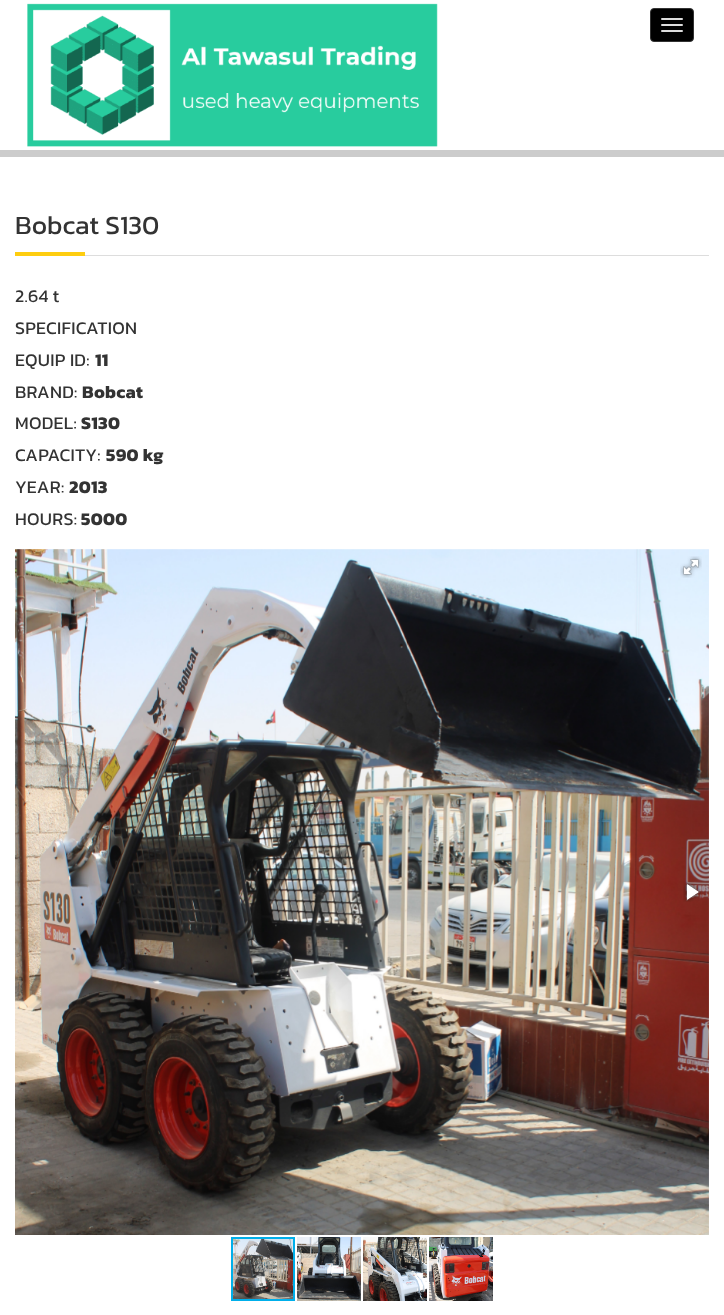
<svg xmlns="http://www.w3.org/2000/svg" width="724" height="1315">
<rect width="100%" height="100%" fill="#fff"/>
<rect y="150" width="724" height="7" fill="#ccc"/>
<image x="27" y="3" width="411" height="144" href="media/1.png"/>
<rect x="650.5" y="8.5" width="43" height="33" rx="3.5" fill="#000" stroke="#333"/>
<rect x="661" y="18" width="22" height="2" rx="1" fill="#ddd"/>
<rect x="661" y="24" width="22" height="2" rx="1" fill="#ddd"/>
<rect x="661" y="30" width="22" height="2" rx="1" fill="#ddd"/>
<text x="15" y="234" style="font-family:Kanit;font-size:26.5px;fill:#333">Bobcat S130</text>
<rect x="85" y="255" width="624" height="1" fill="#ddd"/>
<rect x="15" y="252" width="70" height="4" fill="#fecd0f"/>
<text x="15" y="302" style="font-family:Kanit;font-size:18px;letter-spacing:0.25px;fill:#333">2.64 t</text>
<text x="15" y="334" style="font-family:Kanit;font-size:18px;letter-spacing:0.25px;fill:#333">SPECIFICATION</text>
<text x="15" y="366" style="font-family:Kanit;font-size:18px;letter-spacing:0.25px;fill:#333">EQUIP ID:</text>
<text x="95" y="366" style="font-family:Kanit;font-size:18px;font-weight:bold;letter-spacing:0.25px;fill:#333">11</text>
<text x="15" y="398" style="font-family:Kanit;font-size:18px;letter-spacing:0.25px;fill:#333">BRAND:</text>
<text x="82" y="398" style="font-family:Kanit;font-size:18px;font-weight:bold;letter-spacing:0.25px;fill:#333">Bobcat</text>
<text x="15" y="429" style="font-family:Kanit;font-size:18px;letter-spacing:0.25px;fill:#333">MODEL:</text>
<text x="81" y="429" style="font-family:Kanit;font-size:18px;font-weight:bold;letter-spacing:0.25px;fill:#333">S130</text>
<text x="15" y="461" style="font-family:Kanit;font-size:18px;letter-spacing:0.25px;fill:#333">CAPACITY:</text>
<text x="106" y="461" style="font-family:Kanit;font-size:18px;font-weight:bold;letter-spacing:0.25px;fill:#333">590 kg</text>
<text x="15" y="493" style="font-family:Kanit;font-size:18px;letter-spacing:0.25px;fill:#333">YEAR:</text>
<text x="69" y="493" style="font-family:Kanit;font-size:18px;font-weight:bold;letter-spacing:0.25px;fill:#333">2013</text>
<text x="15" y="525" style="font-family:Kanit;font-size:18px;letter-spacing:0.25px;fill:#333">HOURS:</text>
<text x="81" y="525" style="font-family:Kanit;font-size:18px;font-weight:bold;letter-spacing:0.25px;fill:#333">5000</text>
<image x="15" y="549" width="694" height="686" href="media/2.png"/>
<image x="680" y="556" width="22" height="22" href="media/3.png"/>
<image x="25" y="883" width="13" height="18" href="media/4.png"/>
<image x="683" y="881" width="18" height="21" href="media/5.png"/>
<image x="233" y="1239" width="60" height="60" href="media/9.png"/>
<rect x="232" y="1238" width="62" height="62" fill="none" stroke="#00afea" stroke-width="2"/>
<image x="297" y="1237" width="64" height="64" href="media/6.png"/>
<image x="363" y="1237" width="64" height="64" href="media/7.png"/>
<image x="429" y="1237" width="64" height="64" href="media/8.png"/>
</svg>
